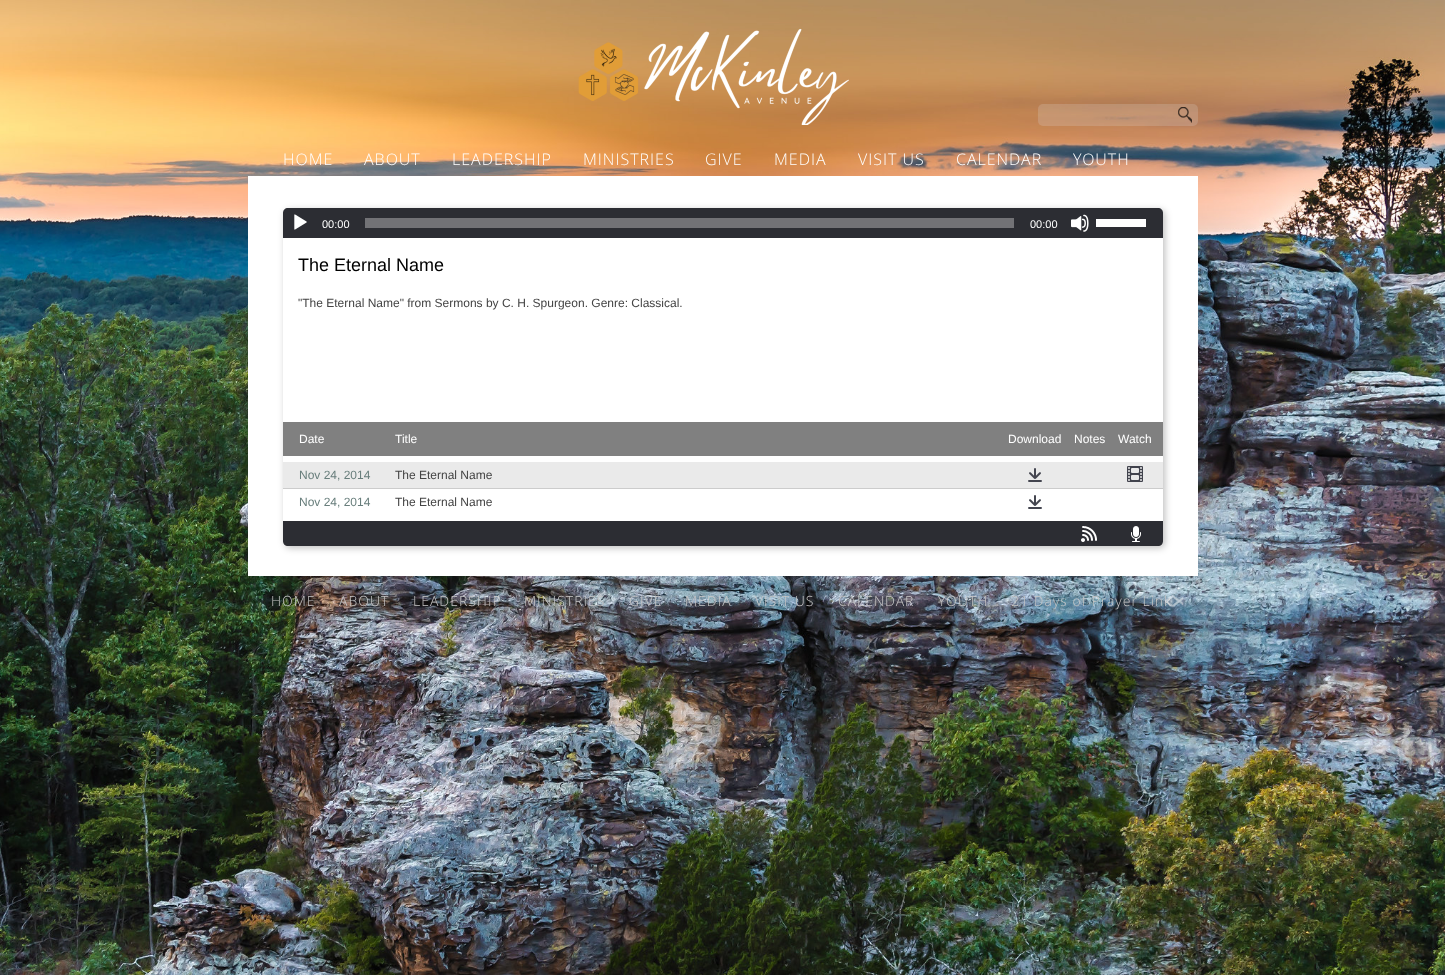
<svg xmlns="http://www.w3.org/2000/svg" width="1445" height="975">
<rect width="100%" height="100%" fill="#fff"/>
<image x="0" y="0" width="1445" height="975" href="media/1.png"/>
<image x="578" y="28" width="271" height="97" href="media/2.png"/>
<rect x="1038" y="104" width="160" height="22" rx="5" fill="#dfdfdf33"/>
<image x="1178" y="107" width="14" height="16" href="media/3.png"/>
<text x="283" y="165" style="font-family:Open Sans;font-size:16px;font-weight:300;letter-spacing:1px;fill:#fff">HOME</text>
<text x="364" y="165" style="font-family:Open Sans;font-size:16px;font-weight:300;letter-spacing:1px;fill:#fff">ABOUT</text>
<text x="452" y="165" style="font-family:Open Sans;font-size:16px;font-weight:300;letter-spacing:1px;fill:#fff">LEADERSHIP</text>
<text x="583" y="165" style="font-family:Open Sans;font-size:16px;font-weight:300;letter-spacing:1px;fill:#fff">MINISTRIES</text>
<text x="705" y="165" style="font-family:Open Sans;font-size:16px;font-weight:300;letter-spacing:1px;fill:#fff">GIVE</text>
<text x="774" y="165" style="font-family:Open Sans;font-size:16px;font-weight:300;letter-spacing:1px;fill:#fff">MEDIA</text>
<text x="858" y="165" style="font-family:Open Sans;font-size:16px;font-weight:300;letter-spacing:1px;fill:#fff">VISIT US</text>
<text x="956" y="165" style="font-family:Open Sans;font-size:16px;font-weight:300;letter-spacing:1px;fill:#fff">CALENDAR</text>
<text x="1073" y="165" style="font-family:Open Sans;font-size:16px;font-weight:300;letter-spacing:1px;fill:#fff">YOUTH</text>
<rect x="248" y="176" width="950" height="400" fill="#fff"/>
<rect x="285" y="210" width="880" height="338" rx="5" fill="#00000040" filter="blur(3.5px)"/>
<rect x="283" y="208" width="880" height="338" rx="5" fill="#fff"/>
<path d="M288 208h870c3 0 5 2 5 5v25h-880v-25c0-3 2-5 5-5z" fill="#2c2d33"/>
<image x="294" y="214" width="13" height="16" href="media/4.png"/>
<text x="322" y="228" style="font-family:Liberation Sans;font-size:11px;fill:#fff">00:00</text>
<rect x="365" y="218" width="649" height="10" fill="#727276"/>
<text x="1030" y="228" style="font-family:Liberation Sans;font-size:11px;fill:#fff">00:00</text>
<image x="1071" y="214" width="18" height="18" href="media/5.png"/>
<rect x="1096" y="219" width="50" height="8" fill="#fff"/>
<text x="298" y="271" style="font-family:Liberation Sans;font-size:18px;fill:#000">The Eternal Name</text>
<text x="298" y="307" style="font-family:Liberation Sans;font-size:12px;fill:#444">"The Eternal Name" from Sermons by C. H. Spurgeon. Genre: Classical.</text>
<rect x="283" y="422" width="880" height="34" fill="#808080"/>
<text x="299" y="443" style="font-family:Liberation Sans;font-size:12px;fill:#fff">Date</text>
<text x="395" y="443" style="font-family:Liberation Sans;font-size:12px;fill:#fff">Title</text>
<text x="1008" y="443" style="font-family:Liberation Sans;font-size:12px;fill:#fff">Download</text>
<text x="1074" y="443" style="font-family:Liberation Sans;font-size:12px;fill:#fff">Notes</text>
<text x="1118" y="443" style="font-family:Liberation Sans;font-size:12px;fill:#fff">Watch</text>
<rect x="283" y="462" width="880" height="26" fill="#eaeaea"/>
<text x="299" y="479" style="font-family:Liberation Sans;font-size:12px;fill:#687e7c">Nov 24, 2014</text>
<text x="395" y="479" style="font-family:Liberation Sans;font-size:12px;fill:#444">The Eternal Name</text>
<image x="1028" y="468" width="14" height="14" href="media/6.png"/>
<image x="1127" y="466" width="16" height="16" href="media/7.png"/>
<rect x="283" y="488" width="880" height="1" fill="#ccc"/>
<text x="299" y="506" style="font-family:Liberation Sans;font-size:12px;fill:#687e7c">Nov 24, 2014</text>
<text x="395" y="506" style="font-family:Liberation Sans;font-size:12px;fill:#444">The Eternal Name</text>
<image x="1028" y="495" width="14" height="14" href="media/8.png"/>
<path d="M283 521h880v20c0 3-2 5-5 5h-870c-3 0-5-2-5-5z" fill="#2c2d33"/>
<image x="1081" y="526" width="16" height="16" href="media/9.png"/>
<image x="1131" y="526" width="10" height="16" href="media/10.png"/>
<text x="271" y="606" style="font-family:Open Sans;font-size:14px;font-weight:300;letter-spacing:1px;fill:#c8c7c7">HOME</text>
<text x="339" y="606" style="font-family:Open Sans;font-size:14px;font-weight:300;letter-spacing:1px;fill:#c8c7c7">ABOUT</text>
<text x="413" y="606" style="font-family:Open Sans;font-size:14px;font-weight:300;letter-spacing:1px;fill:#c8c7c7">LEADERSHIP</text>
<text x="524" y="606" style="font-family:Open Sans;font-size:14px;font-weight:300;letter-spacing:1px;fill:#c8c7c7">MINISTRIES</text>
<text x="629" y="606" style="font-family:Open Sans;font-size:14px;font-weight:300;letter-spacing:1px;fill:#c8c7c7">GIVE</text>
<text x="685" y="606" style="font-family:Open Sans;font-size:14px;font-weight:300;letter-spacing:1px;fill:#c8c7c7">MEDIA</text>
<text x="755" y="606" style="font-family:Open Sans;font-size:14px;font-weight:300;letter-spacing:1px;fill:#c8c7c7">VISIT US</text>
<text x="838" y="606" style="font-family:Open Sans;font-size:14px;font-weight:300;letter-spacing:1px;fill:#c8c7c7">CALENDAR</text>
<text x="938" y="606" style="font-family:Open Sans;font-size:14px;font-weight:300;letter-spacing:1px;fill:#c8c7c7">YOUTH</text>
<text x="1011" y="606" style="font-family:Open Sans;font-size:14px;font-weight:300;letter-spacing:1px;fill:#c8c7c7">21 Days of Prayer Link</text>
<image x="1164" y="595" width="20" height="13" href="media/11.png"/>
</svg>
